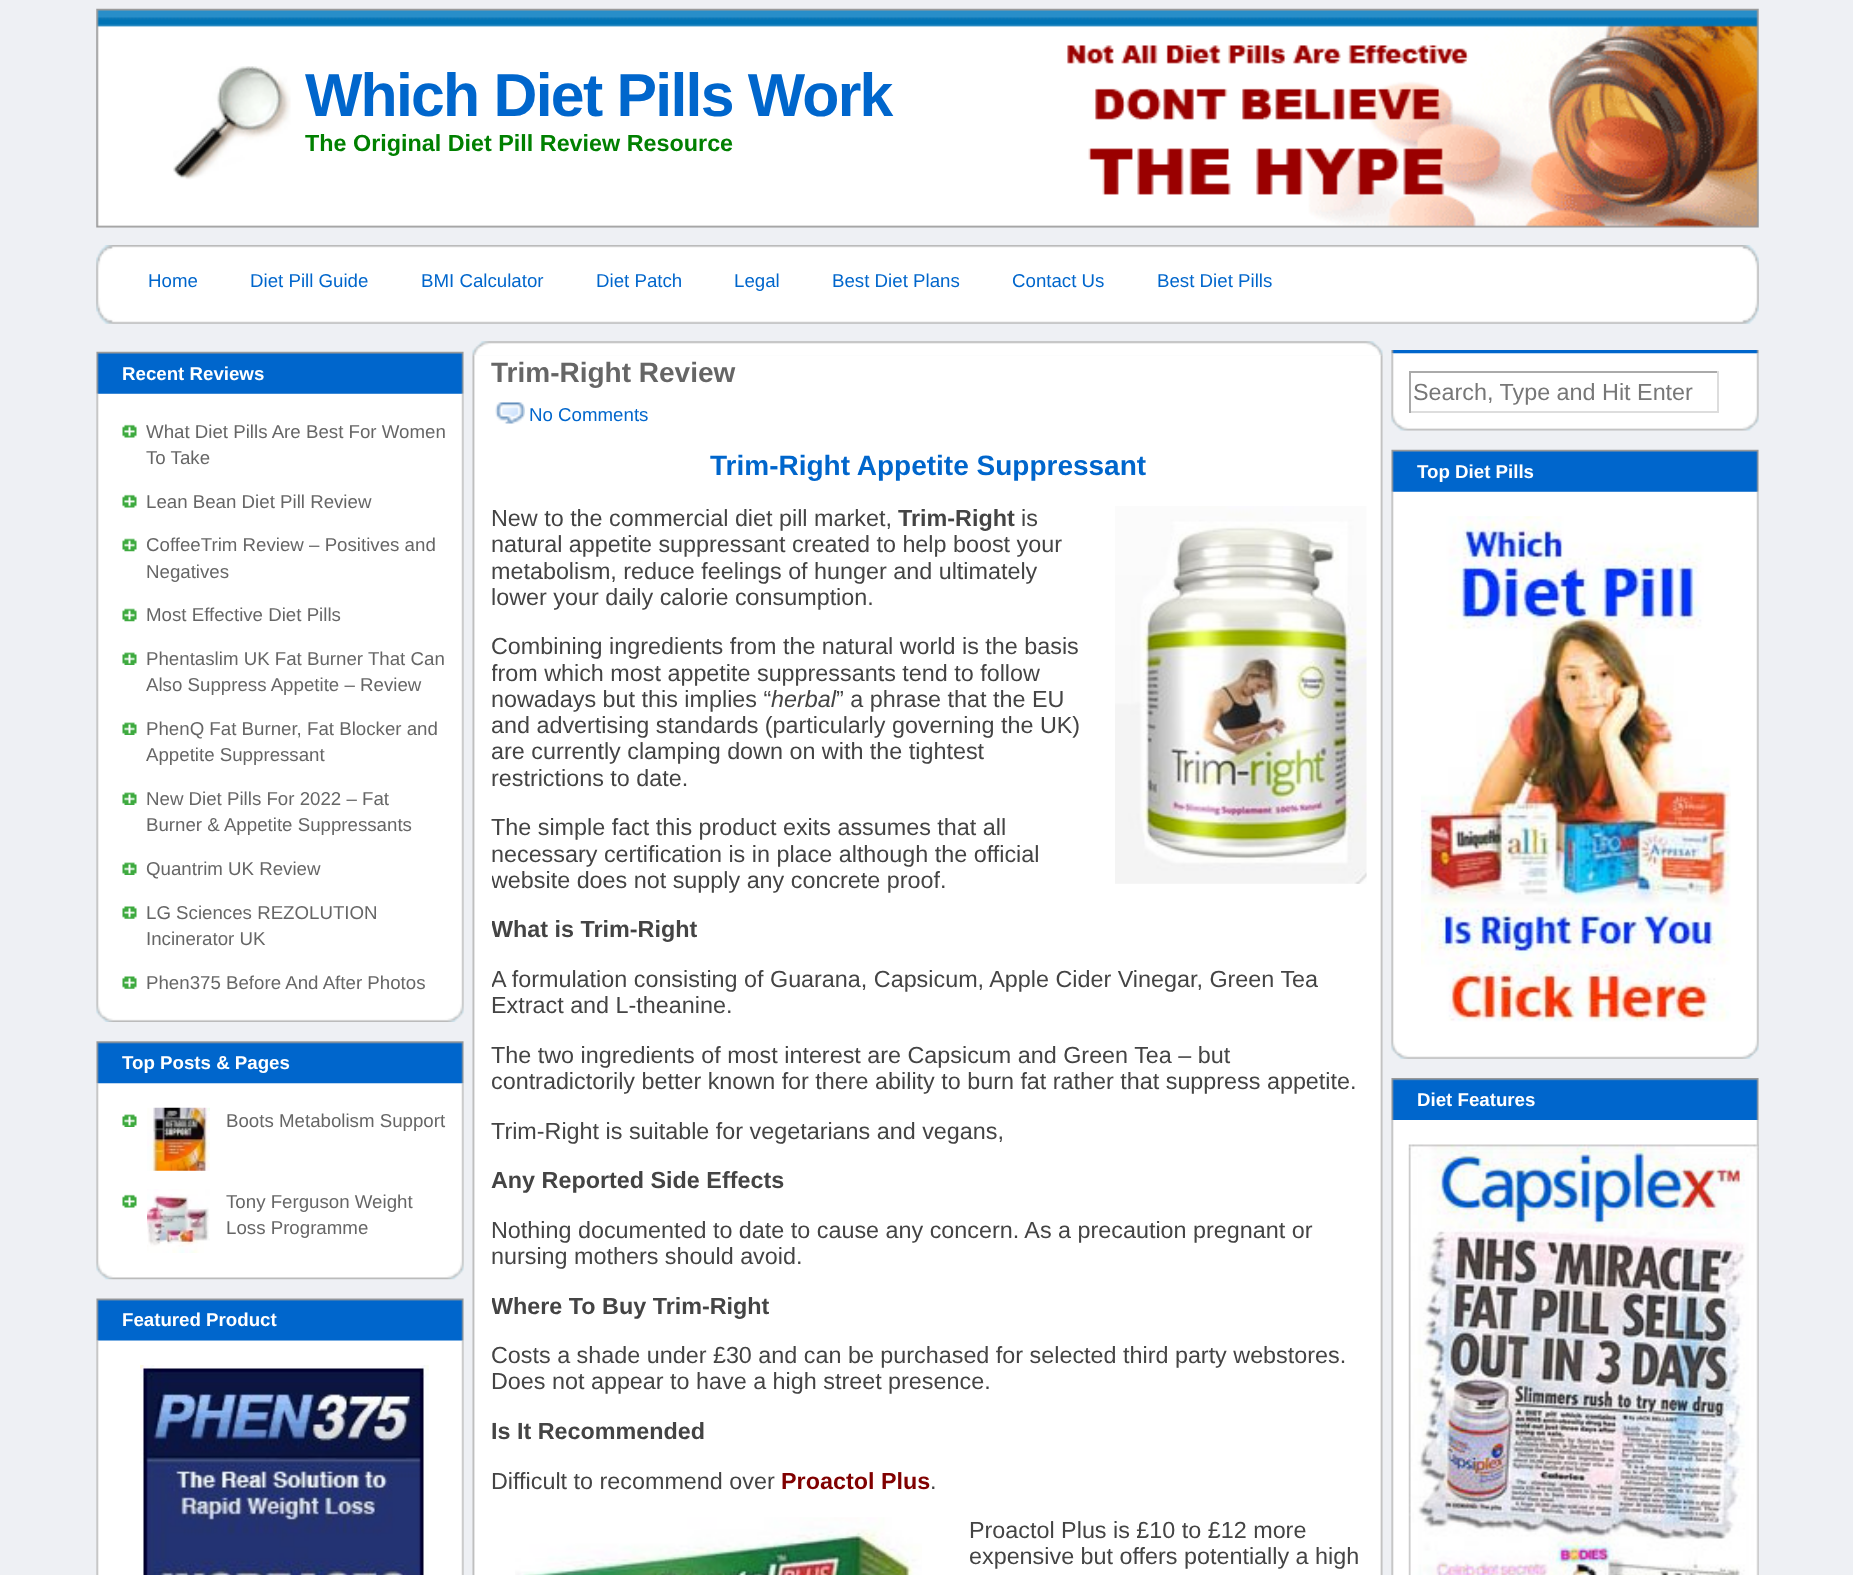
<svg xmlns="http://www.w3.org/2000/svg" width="1853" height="1575">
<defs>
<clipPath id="clip1"><rect x="492" y="450" width="875" height="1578"/></clipPath>
</defs>
<rect width="100%" height="100%" fill="#eef0f4"/>
<image x="96" y="8" width="1663" height="220" href="media/1.png"/>
<image x="173" y="66" width="118" height="114" href="media/2.png"/>
<text x="305" y="116" style="font-family:Liberation Sans;font-size:60.75px;font-weight:bold;letter-spacing:-1.75px;fill:#06c">Which Diet Pills Work</text>
<text x="305" y="151" style="font-family:Liberation Sans;font-size:23.35px;font-weight:bold;fill:#008000">The Original Diet Pill Review Resource</text>
<image x="96" y="245" width="1663" height="79" href="media/3.png"/>
<text x="148" y="287" style="font-family:Liberation Sans;font-size:18.7px;fill:#06c">Home</text>
<text x="250" y="287" style="font-family:Liberation Sans;font-size:18.7px;fill:#06c">Diet Pill Guide</text>
<text x="421" y="287" style="font-family:Liberation Sans;font-size:18.7px;fill:#06c">BMI Calculator</text>
<text x="596" y="287" style="font-family:Liberation Sans;font-size:18.7px;fill:#06c">Diet Patch</text>
<text x="734" y="287" style="font-family:Liberation Sans;font-size:18.7px;fill:#06c">Legal</text>
<text x="832" y="287" style="font-family:Liberation Sans;font-size:18.7px;fill:#06c">Best Diet Plans</text>
<text x="1012" y="287" style="font-family:Liberation Sans;font-size:18.7px;fill:#06c">Contact Us</text>
<text x="1157" y="287" style="font-family:Liberation Sans;font-size:18.7px;fill:#06c">Best Diet Pills</text>
<image x="472" y="341" width="911" height="15" href="media/4.png"/>
<image x="96" y="393" width="368" height="629" href="media/5.png"/>
<image x="96" y="351" width="368" height="43" href="media/6.png"/>
<text x="122" y="380" style="font-family:Liberation Sans;font-size:18.7px;font-weight:bold;fill:#fff">Recent Reviews</text>
<image x="122" y="424" width="15" height="14" href="media/7.png"/>
<text x="146" y="438" style="font-family:Liberation Sans;font-size:18.7px;fill:#666">What Diet Pills Are Best For Women</text>
<text x="146" y="464" style="font-family:Liberation Sans;font-size:18.7px;fill:#666">To Take</text>
<image x="122" y="494" width="15" height="14" href="media/7.png"/>
<text x="146" y="508" style="font-family:Liberation Sans;font-size:18.7px;fill:#666">Lean Bean Diet Pill Review</text>
<image x="122" y="538" width="15" height="14" href="media/8.png"/>
<text x="146" y="551" style="font-family:Liberation Sans;font-size:18.7px;fill:#666">CoffeeTrim Review – Positives and</text>
<text x="146" y="578" style="font-family:Liberation Sans;font-size:18.7px;fill:#666">Negatives</text>
<image x="122" y="608" width="15" height="14" href="media/8.png"/>
<text x="146" y="621" style="font-family:Liberation Sans;font-size:18.7px;fill:#666">Most Effective Diet Pills</text>
<image x="122" y="652" width="15" height="13" href="media/9.png"/>
<text x="146" y="665" style="font-family:Liberation Sans;font-size:18.7px;fill:#666">Phentaslim UK Fat Burner That Can</text>
<text x="146" y="691" style="font-family:Liberation Sans;font-size:18.7px;fill:#666">Also Suppress Appetite – Review</text>
<image x="122" y="722" width="15" height="13" href="media/9.png"/>
<text x="146" y="735" style="font-family:Liberation Sans;font-size:18.7px;fill:#666">PhenQ Fat Burner, Fat Blocker and</text>
<text x="146" y="761" style="font-family:Liberation Sans;font-size:18.7px;fill:#666">Appetite Suppressant</text>
<image x="122" y="792" width="15" height="13" href="media/9.png"/>
<text x="146" y="805" style="font-family:Liberation Sans;font-size:18.7px;fill:#666">New Diet Pills For 2022 – Fat</text>
<text x="146" y="831" style="font-family:Liberation Sans;font-size:18.7px;fill:#666">Burner &amp; Appetite Suppressants</text>
<image x="122" y="862" width="15" height="13" href="media/9.png"/>
<text x="146" y="875" style="font-family:Liberation Sans;font-size:18.7px;fill:#666">Quantrim UK Review</text>
<image x="122" y="906" width="15" height="13" href="media/10.png"/>
<text x="146" y="919" style="font-family:Liberation Sans;font-size:18.7px;fill:#666">LG Sciences REZOLUTION</text>
<text x="146" y="945" style="font-family:Liberation Sans;font-size:18.7px;fill:#666">Incinerator UK</text>
<image x="122" y="976" width="15" height="13" href="media/10.png"/>
<text x="146" y="989" style="font-family:Liberation Sans;font-size:18.7px;fill:#666">Phen375 Before And After Photos</text>
<image x="96" y="1083" width="368" height="197" href="media/11.png"/>
<image x="96" y="1041" width="368" height="43" href="media/12.png"/>
<text x="122" y="1069" style="font-family:Liberation Sans;font-size:18.7px;font-weight:bold;fill:#fff">Top Posts &amp; Pages</text>
<image x="122" y="1114" width="15" height="13" href="media/9.png"/>
<image x="147" y="1107" width="63" height="64" href="media/13.png"/>
<text x="226" y="1127" style="font-family:Liberation Sans;font-size:18.7px;fill:#666">Boots Metabolism Support</text>
<image x="122" y="1194" width="15" height="14" href="media/7.png"/>
<image x="147" y="1189" width="63" height="64" href="media/14.png"/>
<text x="226" y="1208" style="font-family:Liberation Sans;font-size:18.7px;fill:#666">Tony Ferguson Weight</text>
<text x="226" y="1234" style="font-family:Liberation Sans;font-size:18.7px;fill:#666">Loss Programme</text>
<image x="96" y="1340" width="368" height="235" href="media/15.png"/>
<image x="96" y="1298" width="368" height="43" href="media/16.png"/>
<text x="122" y="1326" style="font-family:Liberation Sans;font-size:18.7px;font-weight:bold;fill:#fff">Featured Product</text>
<image x="140" y="1365" width="289" height="210" href="media/17.png"/>
<image x="472" y="355" width="911" height="1220" href="media/18.png"/>
<text x="491" y="382" style="font-family:Liberation Sans;font-size:28px;font-weight:bold;fill:#666">Trim-Right Review</text>
<image x="495" y="402" width="30" height="22" href="media/19.png"/>
<text x="529" y="421" style="font-family:Liberation Sans;font-size:18.7px;fill:#06c">No Comments</text>
<text x="710" y="475" style="font-family:Liberation Sans;font-size:28px;font-weight:bold;fill:#06c">Trim-Right Appetite Suppressant</text>
<text x="491" y="526" style="font-family:Liberation Sans;font-size:23.35px;fill:#444">New to the commercial diet pill market,</text>
<text x="898" y="526" style="font-family:Liberation Sans;font-size:23.35px;font-weight:bold;fill:#444">Trim-Right</text>
<text x="1021" y="526" style="font-family:Liberation Sans;font-size:23.35px;fill:#444">is</text>
<image x="1115" y="506" width="252" height="378" href="media/20.png"/>
<text x="491" y="552" style="font-family:Liberation Sans;font-size:23.35px;fill:#444">natural appetite suppressant created to help boost your</text>
<text x="491" y="579" style="font-family:Liberation Sans;font-size:23.35px;fill:#444">metabolism, reduce feelings of hunger and ultimately</text>
<text x="491" y="605" style="font-family:Liberation Sans;font-size:23.35px;fill:#444">lower your daily calorie consumption.</text>
<text x="491" y="654" style="font-family:Liberation Sans;font-size:23.35px;fill:#444">Combining ingredients from the natural world is the basis</text>
<g clip-path="url(#clip1)">
<text x="491" y="681" style="font-family:Liberation Sans;font-size:23.35px;fill:#444">from which most appetite suppressants tend to follow</text>
</g>
<text x="491" y="707" style="font-family:Liberation Sans;font-size:23.35px;fill:#444">nowadays but this implies “</text>
<text x="771" y="707" style="font-family:Liberation Sans;font-size:23.35px;font-style:italic;fill:#444">herbal</text>
<text x="836" y="707" style="font-family:Liberation Sans;font-size:23.35px;fill:#444">” a phrase that the EU</text>
<text x="491" y="733" style="font-family:Liberation Sans;font-size:23.35px;fill:#444">and advertising standards (particularly governing the UK)</text>
<text x="491" y="759" style="font-family:Liberation Sans;font-size:23.35px;fill:#444">are currently clamping down on with the tightest</text>
<text x="491" y="786" style="font-family:Liberation Sans;font-size:23.35px;fill:#444">restrictions to date.</text>
<text x="491" y="835" style="font-family:Liberation Sans;font-size:23.35px;fill:#444">The simple fact this product exits assumes that all</text>
<text x="491" y="862" style="font-family:Liberation Sans;font-size:23.35px;fill:#444">necessary certification is in place although the official</text>
<g clip-path="url(#clip1)">
<text x="491" y="888" style="font-family:Liberation Sans;font-size:23.35px;fill:#444">website does not supply any concrete proof.</text>
<text x="491" y="937" style="font-family:Liberation Sans;font-size:23.35px;font-weight:bold;fill:#444">What is Trim-Right</text>
<text x="491" y="987" style="font-family:Liberation Sans;font-size:23.35px;fill:#444">A formulation consisting of Guarana, Capsicum, Apple Cider Vinegar, Green Tea</text>
</g>
<text x="491" y="1013" style="font-family:Liberation Sans;font-size:23.35px;fill:#444">Extract and L-theanine.</text>
<text x="491" y="1063" style="font-family:Liberation Sans;font-size:23.35px;fill:#444">The two ingredients of most interest are Capsicum and Green Tea – but</text>
<text x="491" y="1089" style="font-family:Liberation Sans;font-size:23.35px;fill:#444">contradictorily better known for there ability to burn fat rather that suppress appetite.</text>
<text x="491" y="1139" style="font-family:Liberation Sans;font-size:23.35px;fill:#444">Trim-Right is suitable for vegetarians and vegans,</text>
<text x="491" y="1188" style="font-family:Liberation Sans;font-size:23.35px;font-weight:bold;fill:#444">Any Reported Side Effects</text>
<text x="491" y="1238" style="font-family:Liberation Sans;font-size:23.35px;fill:#444">Nothing documented to date to cause any concern. As a precaution pregnant or</text>
<text x="491" y="1264" style="font-family:Liberation Sans;font-size:23.35px;fill:#444">nursing mothers should avoid.</text>
<g clip-path="url(#clip1)">
<text x="491" y="1314" style="font-family:Liberation Sans;font-size:23.35px;font-weight:bold;fill:#444">Where To Buy Trim-Right</text>
</g>
<text x="491" y="1363" style="font-family:Liberation Sans;font-size:23.35px;fill:#444">Costs a shade under £30 and can be purchased for selected third party webstores.</text>
<text x="491" y="1389" style="font-family:Liberation Sans;font-size:23.35px;fill:#444">Does not appear to have a high street presence.</text>
<text x="491" y="1439" style="font-family:Liberation Sans;font-size:23.35px;font-weight:bold;fill:#444">Is It Recommended</text>
<text x="491" y="1489" style="font-family:Liberation Sans;font-size:23.35px;fill:#444">Difficult to recommend over</text>
<text x="781" y="1489" style="font-family:Liberation Sans;font-size:23.35px;font-weight:bold;fill:#800000">Proactol Plus</text>
<text x="930" y="1489" style="font-family:Liberation Sans;font-size:23.35px;fill:#444">.</text>
<image x="515" y="1517" width="407" height="58" href="media/21.png"/>
<text x="969" y="1538" style="font-family:Liberation Sans;font-size:23.35px;fill:#444">Proactol Plus is £10 to £12 more</text>
<text x="969" y="1564" style="font-family:Liberation Sans;font-size:23.35px;fill:#444">expensive but offers potentially a high</text>
<image x="1391" y="350" width="368" height="4" href="media/22.png"/>
<image x="1391" y="353" width="368" height="78" href="media/23.png"/>
<rect x="1409" y="371" width="310" height="2" fill="#aaa"/>
<rect x="1717" y="371" width="2" height="42" fill="#ddd"/>
<rect x="1409" y="411" width="310" height="2" fill="#ddd"/>
<rect x="1409" y="371" width="2" height="42" fill="#aaa"/>
<text x="1413" y="400" style="font-family:Liberation Sans;font-size:23.35px;fill:#777">Search, Type and Hit Enter</text>
<image x="1391" y="491" width="368" height="568" href="media/24.png"/>
<image x="1391" y="449" width="368" height="43" href="media/6.png"/>
<text x="1417" y="478" style="font-family:Liberation Sans;font-size:18.7px;font-weight:bold;fill:#fff">Top Diet Pills</text>
<image x="1421" y="516" width="310" height="506" href="media/25.png"/>
<image x="1391" y="1120" width="368" height="455" href="media/26.png"/>
<image x="1391" y="1078" width="368" height="42" href="media/27.png"/>
<text x="1417" y="1106" style="font-family:Liberation Sans;font-size:18.7px;font-weight:bold;fill:#fff">Diet Features</text>
<image x="1408" y="1144" width="351" height="431" href="media/28.png"/>
</svg>
